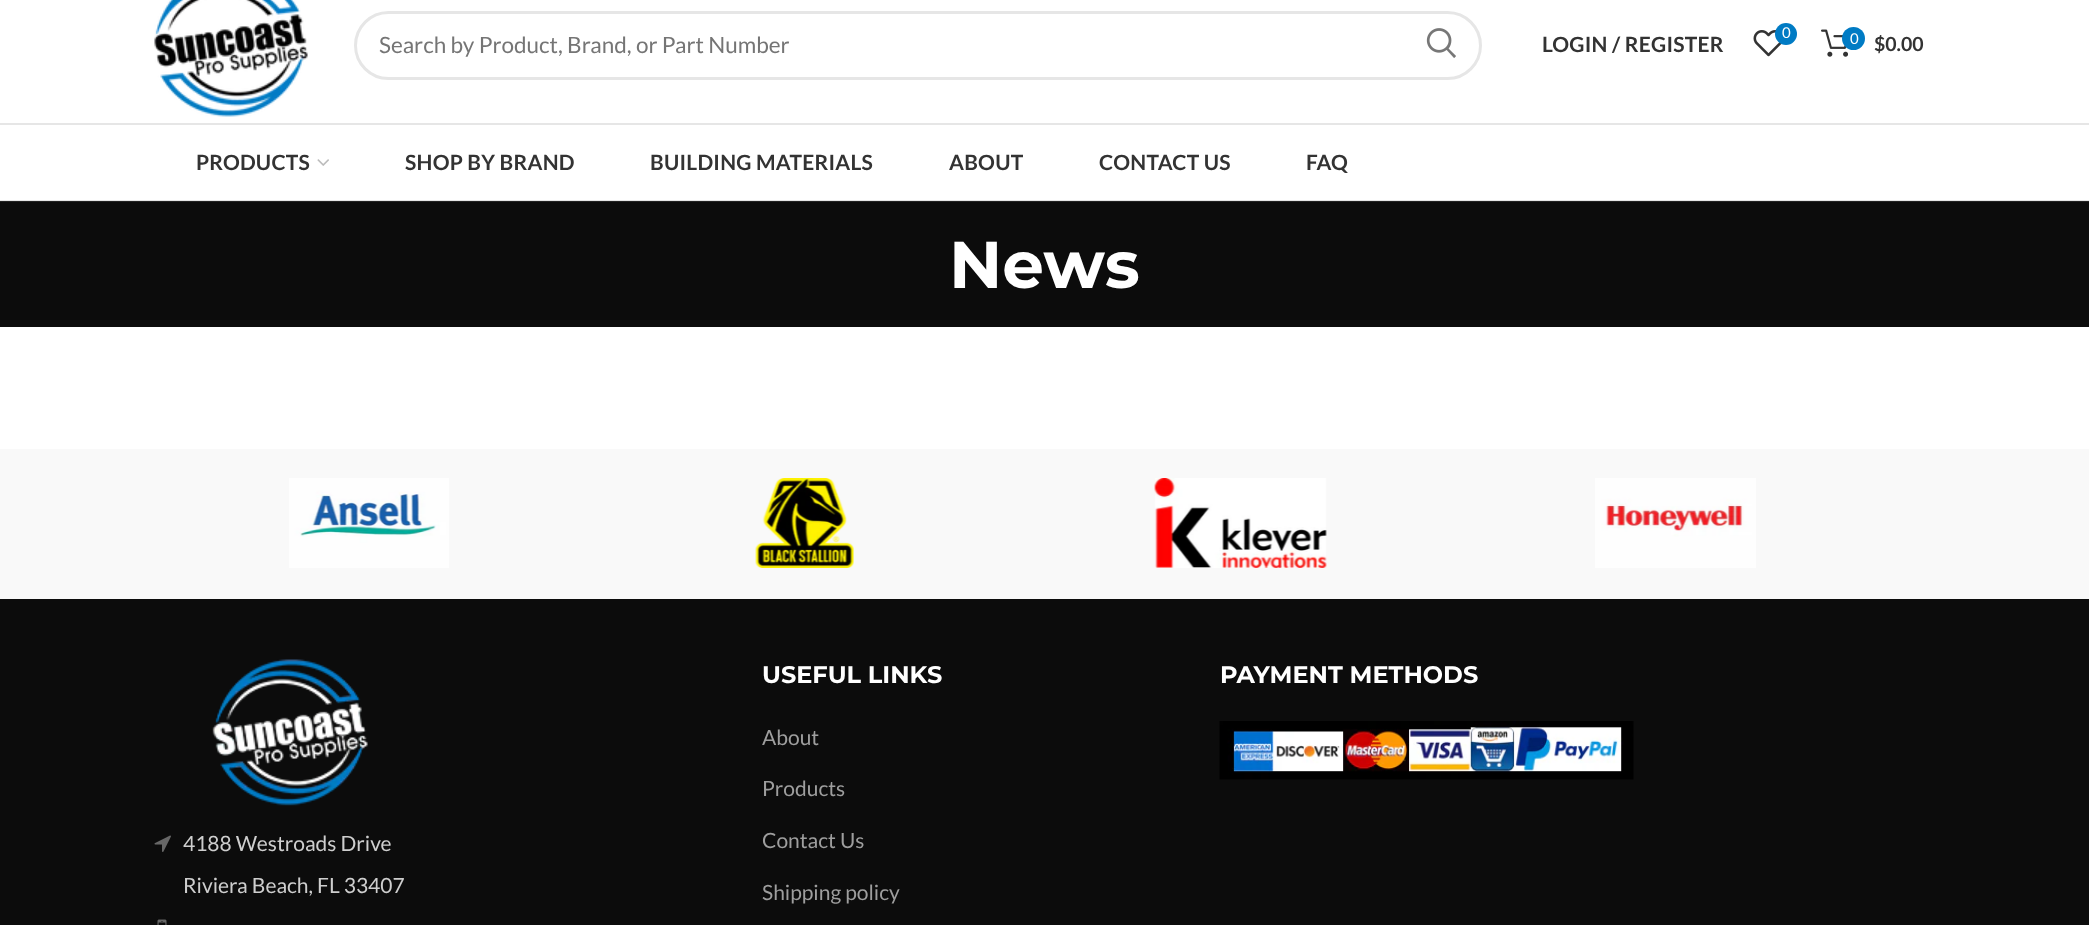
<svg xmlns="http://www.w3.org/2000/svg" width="2089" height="925">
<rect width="100%" height="100%" fill="#fff"/>
<rect y="200" width="2089" height="1" fill="#e6e6e6"/>
<image x="154" y="0" width="154" height="117" href="media/1.png"/>
<rect x="355.5" y="12.5" width="1125" height="66" rx="33" fill="none" stroke="#e6e6e6" stroke-width="3"/>
<text x="379" y="53" style="font-family:Lato;font-size:22.5px;fill:#757575">Search by Product, Brand, or Part Number</text>
<image x="1426" y="28" width="30" height="30" href="media/2.png"/>
<text x="1542" y="52" style="font-family:Lato;font-size:21px;font-weight:bold;letter-spacing:0.25px;fill:#333">LOGIN / REGISTER</text>
<image x="1753" y="30" width="29" height="27" href="media/3.png"/>
<circle cx="1786" cy="34" r="11" fill="#007bc4"/>
<text x="1782" y="38" style="font-family:Lato;font-size:15px;fill:#fff">0</text>
<image x="1821" y="29" width="27" height="28" href="media/4.png"/>
<circle cx="1853.5" cy="38.5" r="11.5" fill="#007bc4"/>
<text x="1850" y="44" style="font-family:Lato;font-size:15px;fill:#fff">0</text>
<text x="1874" y="51" style="font-family:Lato;font-size:19.5px;font-weight:bold;fill:#333">$0.00</text>
<rect y="123" width="2089" height="2" fill="#e6e6e6"/>
<text x="196" y="170" style="font-family:Lato;font-size:21px;font-weight:bold;letter-spacing:0.25px;fill:#333">PRODUCTS</text>
<image x="317" y="159" width="12" height="7" href="media/5.png"/>
<text x="405" y="170" style="font-family:Lato;font-size:21px;font-weight:bold;letter-spacing:0.25px;fill:#333">SHOP BY BRAND</text>
<text x="650" y="170" style="font-family:Lato;font-size:21px;font-weight:bold;letter-spacing:0.25px;fill:#333">BUILDING MATERIALS</text>
<text x="949" y="170" style="font-family:Lato;font-size:21px;font-weight:bold;letter-spacing:0.25px;fill:#333">ABOUT</text>
<text x="1099" y="170" style="font-family:Lato;font-size:21px;font-weight:bold;letter-spacing:0.25px;fill:#333">CONTACT US</text>
<text x="1306" y="170" style="font-family:Lato;font-size:21px;font-weight:bold;letter-spacing:0.25px;fill:#333">FAQ</text>
<rect y="202" width="2089" height="125" fill="#0c0c0c"/>
<rect y="201" width="2089" height="1" fill="#232323"/>
<text x="949" y="288" style="font-family:Montserrat;font-size:66px;font-weight:bold;fill:#fff">News</text>
<rect y="449" width="2089" height="150" fill="#f9f9f9"/>
<image x="289" y="478" width="160" height="90" href="media/6.png"/>
<image x="755" y="478" width="99" height="90" href="media/7.png"/>
<image x="1154" y="478" width="173" height="90" href="media/8.png"/>
<image x="1595" y="478" width="161" height="90" href="media/9.png"/>
<rect y="599" width="2089" height="326" fill="#0c0c0c"/>
<text x="762" y="683" style="font-family:Montserrat;font-size:24px;font-weight:bold;fill:#fff">USEFUL LINKS</text>
<text x="762" y="745" style="font-family:Lato;font-size:21px;fill:#9e9e9e">About</text>
<text x="762" y="796" style="font-family:Lato;font-size:21px;fill:#9e9e9e">Products</text>
<text x="762" y="848" style="font-family:Lato;font-size:21px;fill:#9e9e9e">Contact Us</text>
<text x="762" y="900" style="font-family:Lato;font-size:21px;fill:#9e9e9e">Shipping policy</text>
<text x="1220" y="683" style="font-family:Montserrat;font-size:24px;font-weight:bold;fill:#fff">PAYMENT METHODS</text>
<image x="1219" y="721" width="415" height="59" href="media/10.png"/>
<image x="212" y="659" width="156" height="147" href="media/11.png"/>
<image x="154" y="835" width="17" height="17" href="media/12.png"/>
<text x="183" y="851" style="font-family:Lato;font-size:21px;fill:#cecece">4188 Westroads Drive</text>
<text x="183" y="893" style="font-family:Lato;font-size:21px;fill:#cecece">Riviera Beach, FL 33407</text>
<image x="157" y="919" width="10" height="6" href="media/13.png"/>
</svg>
